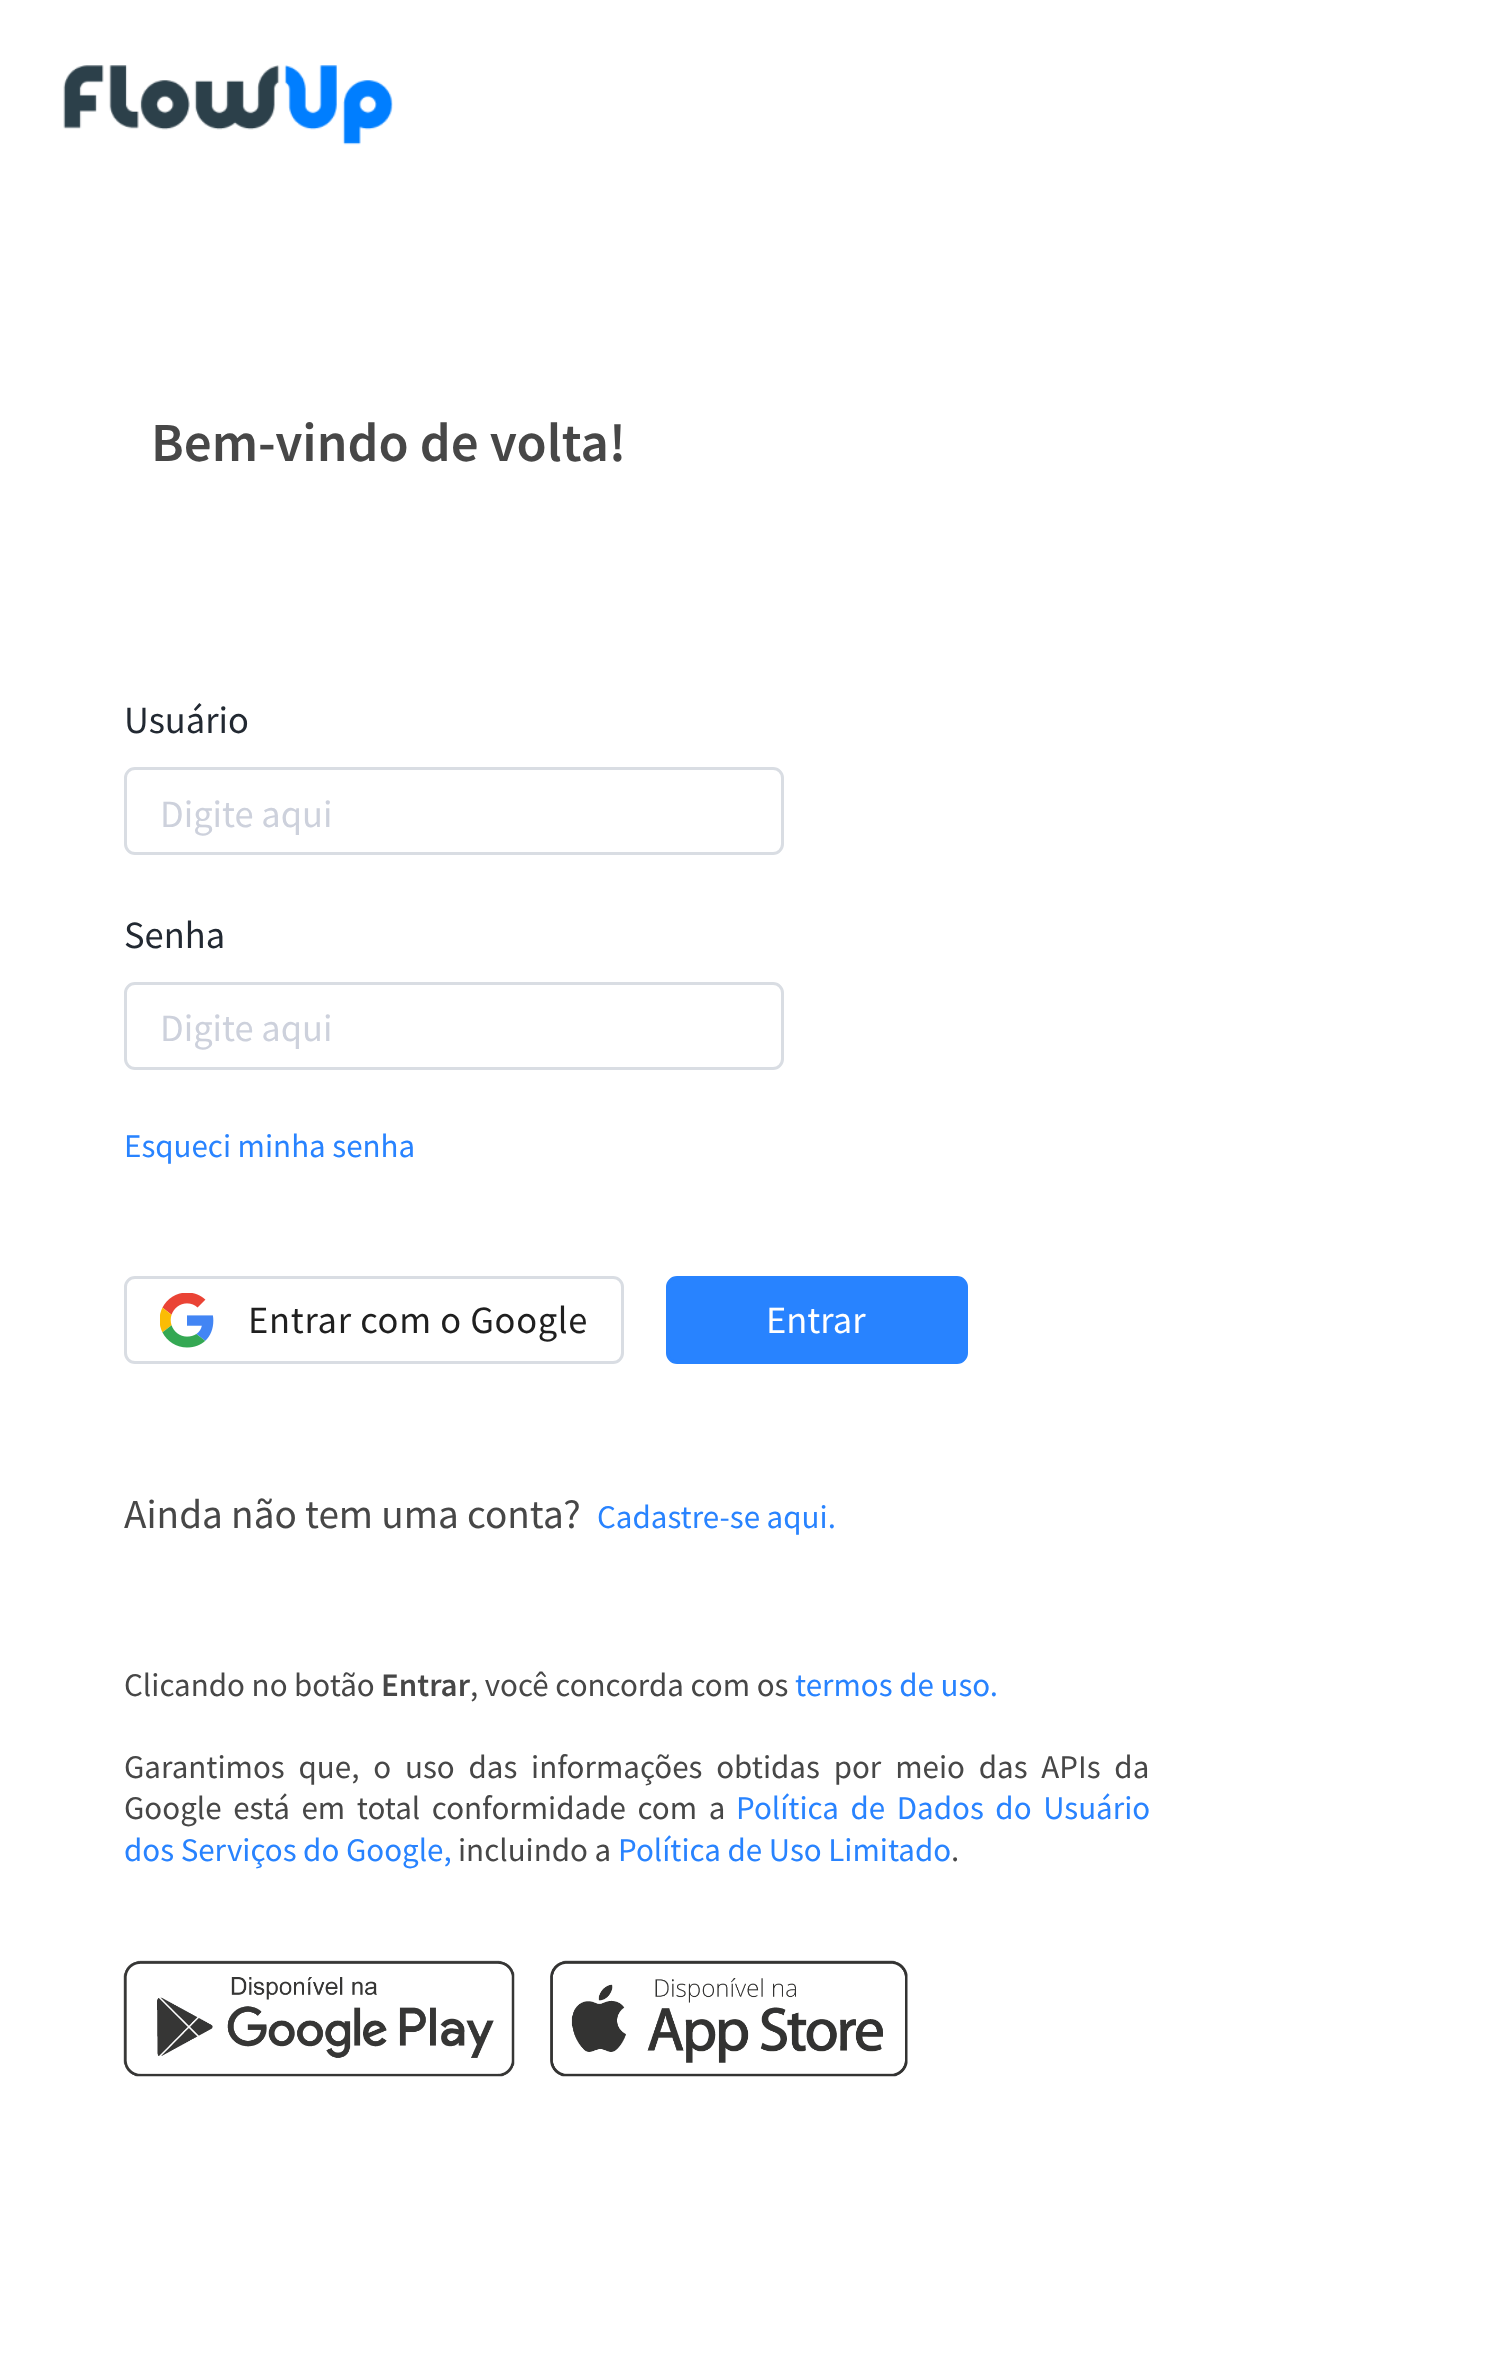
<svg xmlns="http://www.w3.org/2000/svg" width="1497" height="2377">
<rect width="100%" height="100%" fill="#fff"/>
<image x="63" y="65" width="330" height="80" href="media/1.png"/>
<text x="151" y="461" style="font-family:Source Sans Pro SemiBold;font-size:55px;font-weight:600;fill:#474747">Bem-vindo de volta!</text>
<text x="124" y="733" style="font-family:Source Sans Pro;font-size:38.5px;fill:#222932">Usuário</text>
<rect x="125.5" y="768.5" width="657" height="85" rx="9.5" fill="none" stroke="#d9dde3" stroke-width="3"/>
<text x="160" y="827" style="font-family:Source Sans Pro;font-size:38.5px;fill:#cdd1dc">Digite aqui</text>
<text x="124" y="948" style="font-family:Source Sans Pro;font-size:38.5px;fill:#222932">Senha</text>
<rect x="125.5" y="983.5" width="657" height="85" rx="9.5" fill="none" stroke="#d9dde3" stroke-width="3"/>
<text x="160" y="1041" style="font-family:Source Sans Pro;font-size:38.5px;fill:#cdd1dc">Digite aqui</text>
<text x="124" y="1157" style="font-family:Source Sans Pro;font-size:33px;fill:#2883ff">Esqueci minha senha</text>
<rect x="125.5" y="1277.5" width="497" height="85" rx="9.5" fill="none" stroke="#d9dde3" stroke-width="3"/>
<image x="160" y="1293" width="54" height="55" href="media/2.png"/>
<text x="248" y="1333" style="font-family:Source Sans Pro;font-size:38.5px;letter-spacing:0.7px;fill:#1f1f1f">Entrar com o Google</text>
<rect x="667.5" y="1277.5" width="299" height="85" rx="9.5" fill="#2883ff" stroke="#2883ff" stroke-width="3"/>
<text x="766" y="1333" style="font-family:Source Sans Pro;font-size:38.5px;fill:#fff">Entrar</text>
<text x="124" y="1528" style="font-family:Source Sans Pro;font-size:41.25px;fill:#474747">Ainda não tem uma conta?</text>
<text x="597" y="1528" style="font-family:Source Sans Pro;font-size:33px;fill:#2883ff">Cadastre-se aqui.</text>
<text x="124" y="1696" style="font-family:Source Sans Pro;font-size:33px;fill:#474747">Clicando no botão</text>
<text x="381" y="1696" style="font-family:Source Sans Pro SemiBold;font-size:33px;font-weight:600;fill:#474747">Entrar</text>
<text x="470" y="1696" style="font-family:Source Sans Pro;font-size:33px;fill:#474747">, você concorda com os</text>
<text x="795" y="1696" style="font-family:Source Sans Pro;font-size:33px;fill:#2883ff">termos de uso.</text>
<text x="124" y="1778" word-spacing="7.25" style="font-family:Source Sans Pro;font-size:33px;fill:#474747">Garantimos que, o uso das informações obtidas por meio das APIs da</text>
<text x="124" y="1819" word-spacing="5" style="font-family:Source Sans Pro;font-size:33px;fill:#474747">Google está em total conformidade com a</text>
<text x="736" y="1819" word-spacing="5" style="font-family:Source Sans Pro;font-size:33px;fill:#2883ff">Política de Dados do Usuário</text>
<text x="124" y="1861" style="font-family:Source Sans Pro;font-size:33px;fill:#2883ff">dos Serviços do Google,</text>
<text x="458" y="1861" style="font-family:Source Sans Pro;font-size:33px;fill:#474747">incluindo a</text>
<text x="618" y="1861" style="font-family:Source Sans Pro;font-size:33px;fill:#2883ff">Política de Uso Limitado</text>
<text x="951" y="1861" style="font-family:Source Sans Pro;font-size:33px;fill:#474747">.</text>
<image x="123" y="1960" width="392" height="117" href="media/3.png"/>
<image x="550" y="1960" width="358" height="117" href="media/4.png"/>
</svg>
